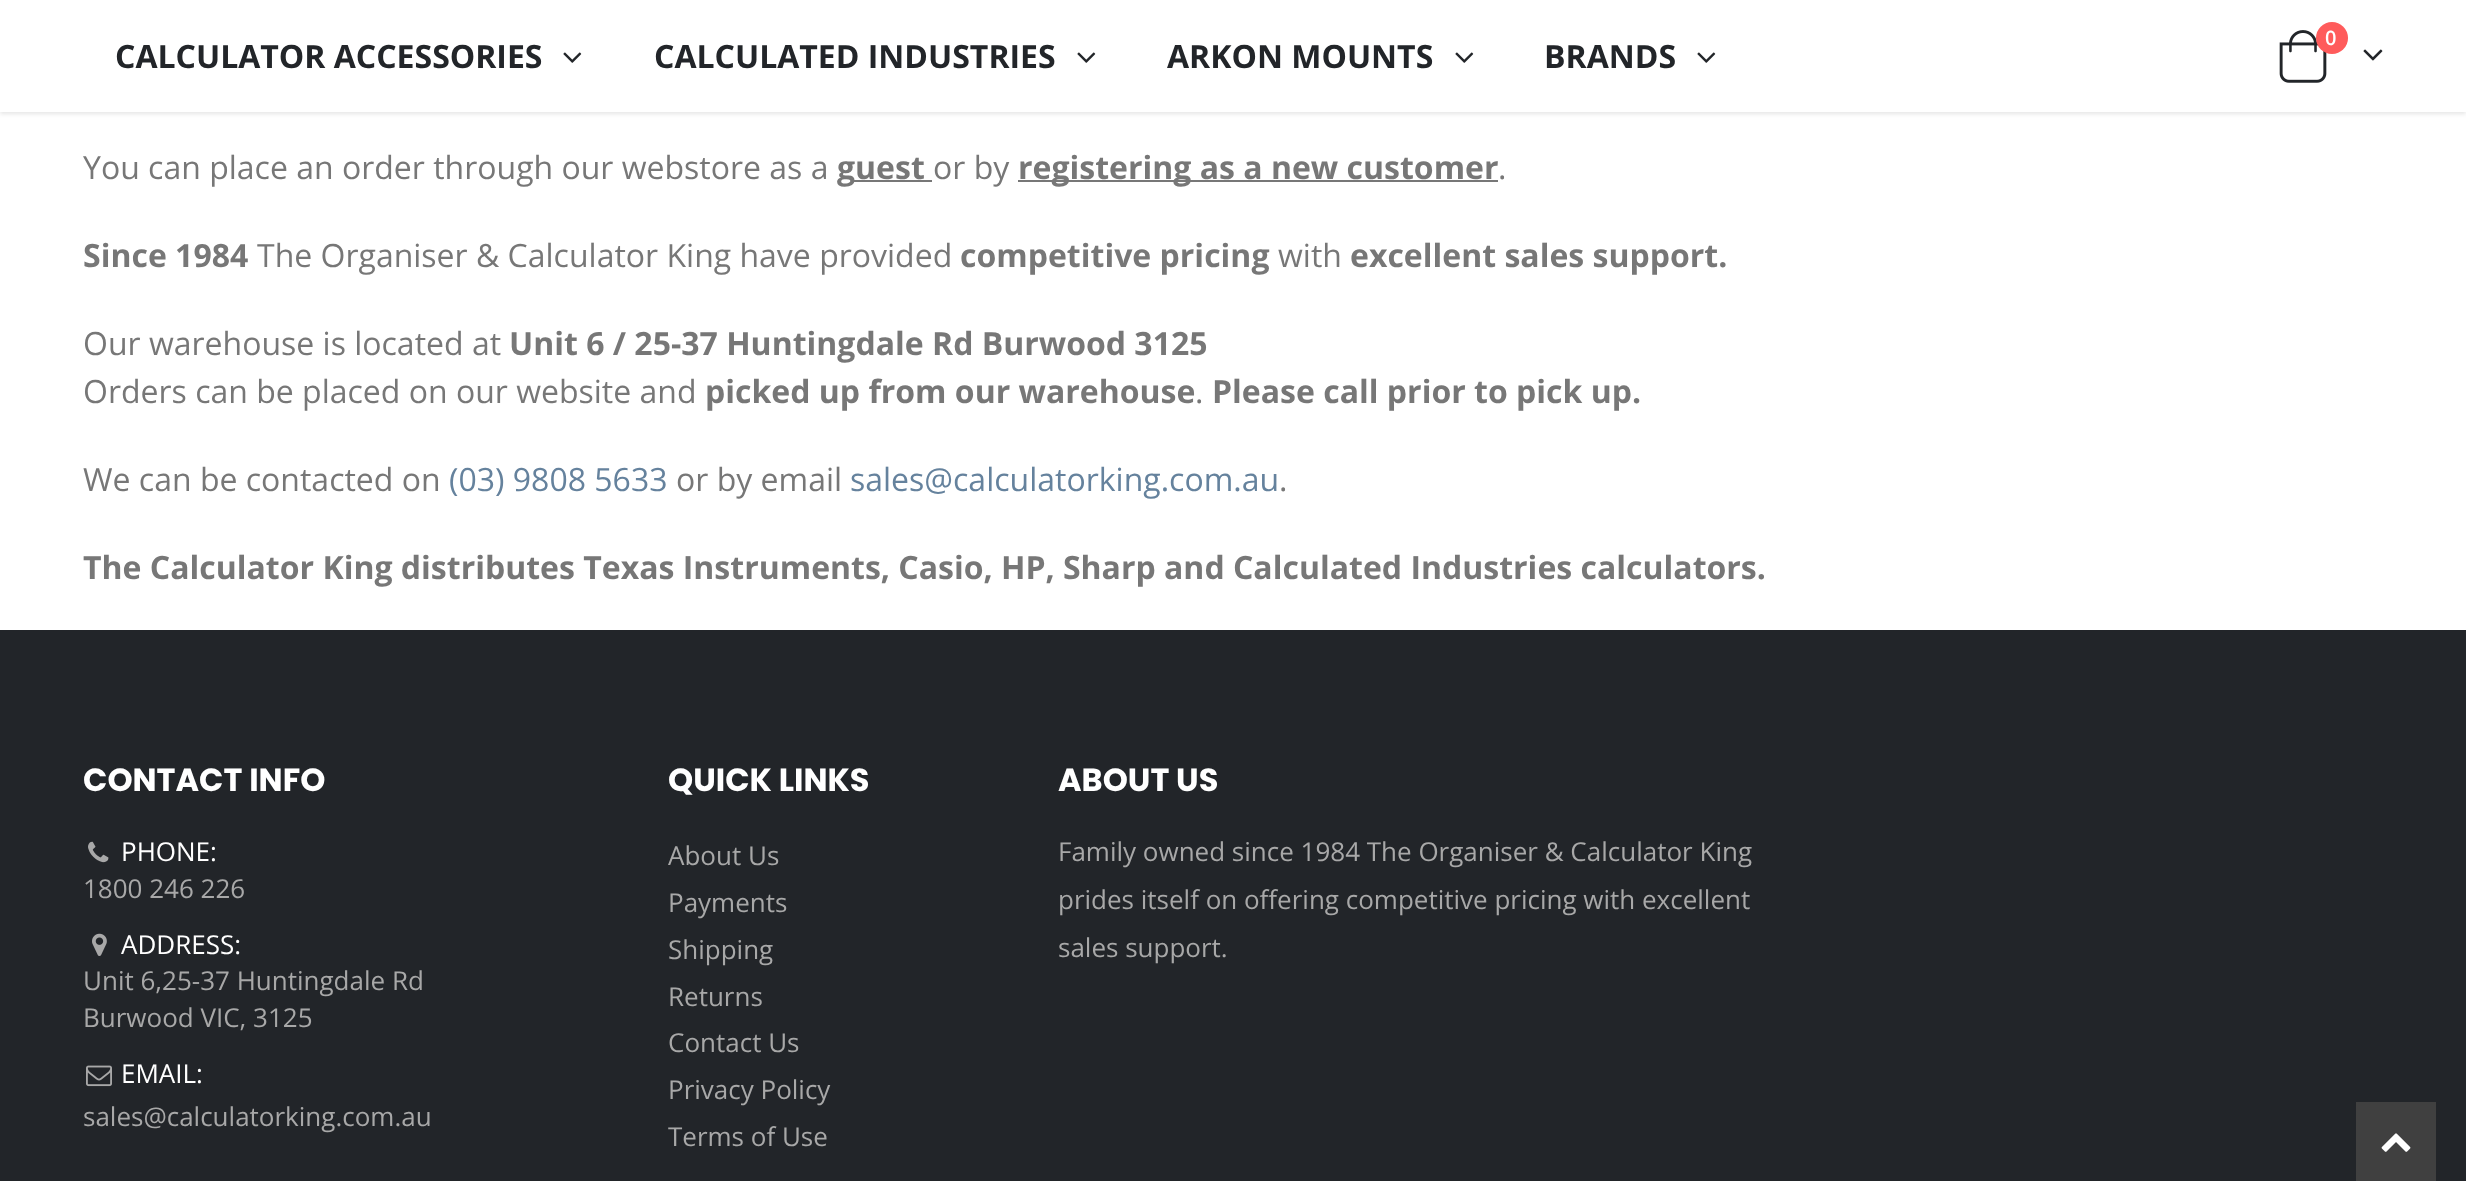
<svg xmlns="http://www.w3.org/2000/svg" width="2466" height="1181">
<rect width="100%" height="100%" fill="#fff"/>
<rect y="2" width="2466" height="112" fill="#0000001a" filter="blur(2px)"/>
<rect width="2466" height="112" fill="#fff"/>
<image x="2279" y="30" width="48" height="53" href="media/1.png"/>
<circle cx="2332" cy="38" r="16" fill="#ff5b5b"/>
<text x="2325" y="45" style="font-family:Open Sans;font-size:20px;font-weight:600;fill:#fff">0</text>
<image x="2363" y="49" width="20" height="12" href="media/2.png"/>
<text x="115" y="68" style="font-family:Open Sans;font-size:32px;font-weight:bold;fill:#222529">CALCULATOR ACCESSORIES</text>
<image x="563" y="52" width="19" height="11" href="media/3.png"/>
<text x="654" y="68" style="font-family:Open Sans;font-size:32px;font-weight:bold;fill:#222529">CALCULATED INDUSTRIES</text>
<image x="1077" y="52" width="19" height="11" href="media/3.png"/>
<text x="1167" y="68" style="font-family:Open Sans;font-size:32px;font-weight:bold;fill:#222529">ARKON MOUNTS</text>
<image x="1455" y="52" width="19" height="11" href="media/3.png"/>
<text x="1544" y="68" style="font-family:Open Sans;font-size:32px;font-weight:bold;fill:#222529">BRANDS</text>
<image x="1697" y="52" width="19" height="11" href="media/3.png"/>
<text x="83" y="179" style="font-family:Open Sans;font-size:32px;fill:#777">You can place an order through our webstore as a</text>
<text x="837" y="179" style="font-family:Open Sans;font-size:32px;font-weight:bold;fill:#777">guest</text>
<rect x="854" y="180" width="78" height="2" fill="#777"/>
<text x="933" y="179" style="font-family:Open Sans;font-size:32px;fill:#777">or by</text>
<rect x="1018" y="180" width="480" height="2" fill="#777"/>
<text x="1018" y="179" style="font-family:Open Sans;font-size:32px;font-weight:bold;fill:#777">registering as a new customer</text>
<text x="1498" y="179" style="font-family:Open Sans;font-size:32px;fill:#777">.</text>
<text x="83" y="267" style="font-family:Open Sans;font-size:32px;font-weight:bold;fill:#777">Since 1984</text>
<text x="257" y="267" style="font-family:Open Sans;font-size:32px;fill:#777">The Organiser &amp; Calculator King have provided</text>
<text x="960" y="267" style="font-family:Open Sans;font-size:32px;font-weight:bold;fill:#777">competitive pricing</text>
<text x="1278" y="267" style="font-family:Open Sans;font-size:32px;fill:#777">with</text>
<text x="1350" y="267" style="font-family:Open Sans;font-size:32px;font-weight:bold;fill:#777">excellent sales support.</text>
<text x="83" y="355" style="font-family:Open Sans;font-size:32px;fill:#777">Our warehouse is located at</text>
<text x="509" y="355" style="font-family:Open Sans;font-size:32px;font-weight:bold;fill:#777">Unit 6 / 25-37 Huntingdale Rd Burwood 3125</text>
<text x="83" y="403" style="font-family:Open Sans;font-size:32px;fill:#777">Orders can be placed on our website and</text>
<text x="705" y="403" style="font-family:Open Sans;font-size:32px;font-weight:bold;fill:#777">picked up from our warehouse</text>
<text x="1195" y="403" style="font-family:Open Sans;font-size:32px;fill:#777">.</text>
<text x="1212" y="403" style="font-family:Open Sans;font-size:32px;font-weight:bold;fill:#777">Please call prior to pick up.</text>
<text x="83" y="491" style="font-family:Open Sans;font-size:32px;fill:#777">We can be contacted on</text>
<text x="449" y="491" style="font-family:Open Sans;font-size:32px;fill:#65829d">(03) 9808 5633</text>
<text x="676" y="491" style="font-family:Open Sans;font-size:32px;fill:#777">or by email</text>
<text x="850" y="491" style="font-family:Open Sans;font-size:32px;fill:#65829d">sales@calculatorking.com.au</text>
<text x="1279" y="491" style="font-family:Open Sans;font-size:32px;fill:#777">.</text>
<text x="83" y="579" style="font-family:Open Sans;font-size:32px;font-weight:bold;fill:#777">The Calculator King distributes Texas Instruments, Casio, HP, Sharp and Calculated Industries calculators.</text>
<rect y="630" width="2466" height="551" fill="#222529"/>
<text x="83" y="791" style="font-family:Poppins;font-size:32px;font-weight:bold;fill:#fff">CONTACT INFO</text>
<image x="88" y="841" width="21" height="22" href="media/4.png"/>
<text x="121" y="861" style="font-family:Open Sans;font-size:26px;fill:#fff">PHONE:</text>
<text x="83" y="898" style="font-family:Open Sans;font-size:26px;fill:#a8a8a8">1800 246 226</text>
<image x="92" y="933" width="15" height="23" href="media/5.png"/>
<text x="121" y="954" style="font-family:Open Sans;font-size:26px;fill:#fff">ADDRESS:</text>
<text x="83" y="990" style="font-family:Open Sans;font-size:26px;fill:#a8a8a8">Unit 6,25-37 Huntingdale Rd</text>
<text x="83" y="1027" style="font-family:Open Sans;font-size:26px;fill:#a8a8a8">Burwood VIC, 3125</text>
<image x="86" y="1065" width="26" height="22" href="media/6.png"/>
<text x="121" y="1083" style="font-family:Open Sans;font-size:26px;fill:#fff">EMAIL:</text>
<text x="83" y="1126" style="font-family:Open Sans;font-size:26px;fill:#a8a8a8">sales@calculatorking.com.au</text>
<text x="668" y="791" style="font-family:Poppins;font-size:32px;font-weight:bold;fill:#fff">QUICK LINKS</text>
<text x="668" y="865" style="font-family:Open Sans;font-size:26px;fill:#a8a8a8">About Us</text>
<text x="668" y="912" style="font-family:Open Sans;font-size:26px;fill:#a8a8a8">Payments</text>
<text x="668" y="959" style="font-family:Open Sans;font-size:26px;fill:#a8a8a8">Shipping</text>
<text x="668" y="1006" style="font-family:Open Sans;font-size:26px;fill:#a8a8a8">Returns</text>
<text x="668" y="1052" style="font-family:Open Sans;font-size:26px;fill:#a8a8a8">Contact Us</text>
<text x="668" y="1099" style="font-family:Open Sans;font-size:26px;fill:#a8a8a8">Privacy Policy</text>
<text x="668" y="1146" style="font-family:Open Sans;font-size:26px;fill:#a8a8a8">Terms of Use</text>
<text x="1058" y="791" style="font-family:Poppins;font-size:32px;font-weight:bold;fill:#fff">ABOUT US</text>
<text x="1058" y="861" style="font-family:Open Sans;font-size:26px;fill:#a8a8a8">Family owned since 1984 The Organiser &amp; Calculator King</text>
<text x="1058" y="909" style="font-family:Open Sans;font-size:26px;fill:#a8a8a8">prides itself on offering competitive pricing with excellent</text>
<text x="1058" y="957" style="font-family:Open Sans;font-size:26px;fill:#a8a8a8">sales support.</text>
<rect x="2356" y="1102" width="80" height="79" fill="#404040"/>
<image x="2381" y="1133" width="30" height="19" href="media/7.png"/>
</svg>
